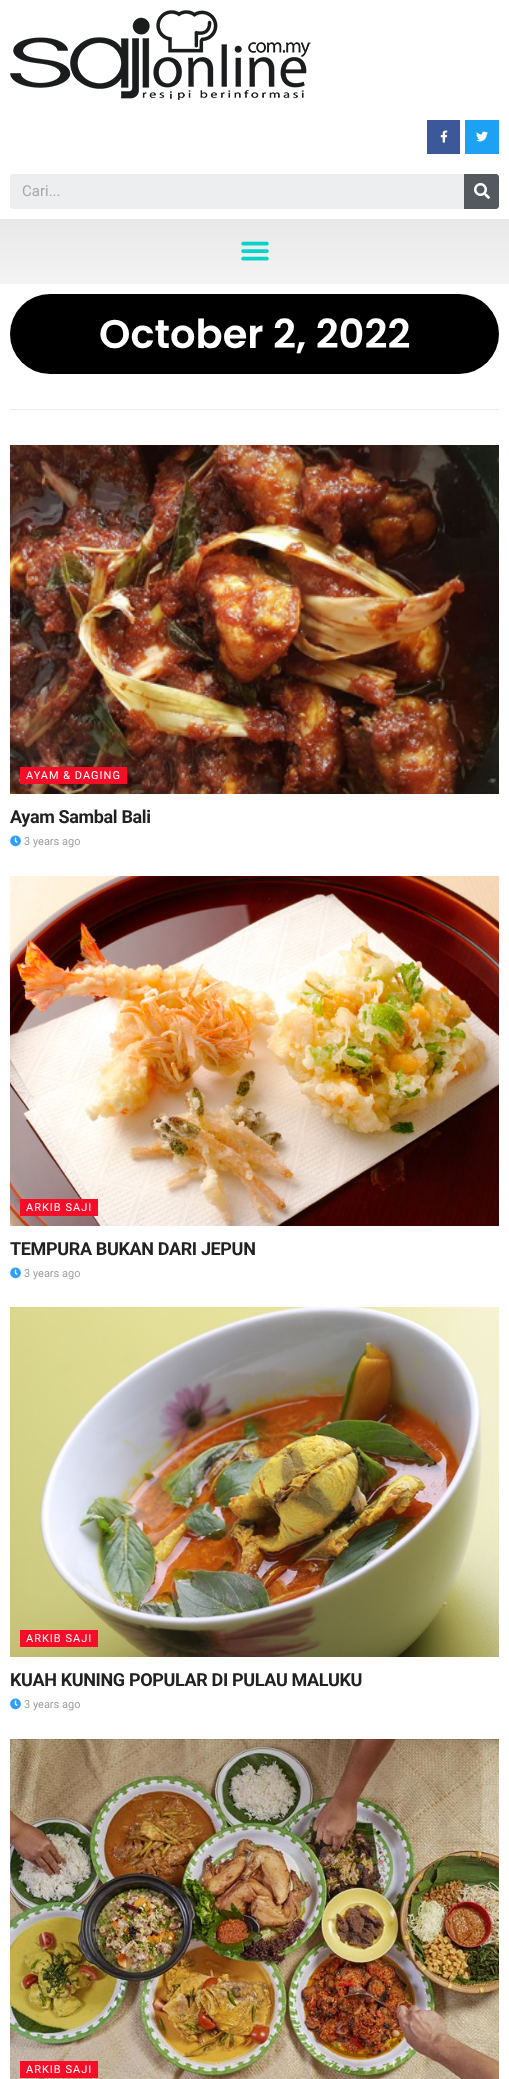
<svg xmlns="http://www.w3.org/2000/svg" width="509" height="2079">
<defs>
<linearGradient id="g1" gradientUnits="userSpaceOnUse" x1="255" y1="219" x2="255" y2="284"><stop offset="0" stop-color="#e8e8e8"/><stop offset="1" stop-color="#f4f4f4"/></linearGradient>
</defs>
<rect width="100%" height="100%" fill="#fff"/>
<image x="10" y="10" width="301" height="90" href="media/1.png"/>
<rect x="427" y="120" width="33" height="34" fill="#3b5998"/>
<image x="440" y="130" width="8" height="13" href="media/2.png"/>
<rect x="465" y="120" width="34" height="34" fill="#1da1f2"/>
<image x="476" y="131" width="12" height="11" href="media/3.png"/>
<rect x="10" y="174" width="489" height="35" rx="3" fill="#eceeef"/>
<text x="22" y="196" style="font-family:Roboto;font-size:15px;fill:#a8a8a9">Cari...</text>
<path d="M464 174h32c1.5 0 3 1.5 3 3v29c0 1.5-1.5 3-3 3h-32z" fill="#54595f"/>
<image x="474" y="183" width="16" height="16" href="media/4.png"/>
<rect y="219" width="509" height="65" fill="url(#g1)"/>
<image x="241" y="241" width="28" height="20" href="media/5.png"/>
<rect x="10" y="294" width="489" height="80" rx="40" fill="#000"/>
<text x="99" y="348" style="font-family:Poppins;font-size:40px;font-weight:600;fill:#fff">October 2, 2022</text>
<rect x="10" y="409" width="489" height="1" fill="#eee"/>
<image x="10" y="445" width="489" height="349" href="media/6.png"/>
<rect x="20" y="767" width="107" height="17" fill="#f70d28"/>
<text x="26" y="779" style="font-family:Roboto;font-size:11px;letter-spacing:1px;fill:#fff">AYAM &amp; DAGING</text>
<text x="10" y="823" style="font-family:Roboto;font-size:18px;font-weight:bold;letter-spacing:-0.35px;fill:#212121">Ayam Sambal Bali</text>
<image x="10" y="835" width="11" height="12" href="media/7.png"/>
<text x="24" y="845" style="font-family:Roboto;font-size:11px;fill:#a0a0a0">3 years ago</text>
<image x="10" y="876" width="489" height="350" href="media/8.png"/>
<rect x="20" y="1199" width="78" height="17" fill="#f70d28"/>
<text x="26" y="1211" style="font-family:Roboto;font-size:11px;letter-spacing:1px;fill:#fff">ARKIB SAJI</text>
<text x="10" y="1255" style="font-family:Roboto;font-size:18px;font-weight:bold;letter-spacing:-0.35px;fill:#212121">TEMPURA BUKAN DARI JEPUN</text>
<image x="10" y="1267" width="11" height="12" href="media/7.png"/>
<text x="24" y="1277" style="font-family:Roboto;font-size:11px;fill:#a0a0a0">3 years ago</text>
<image x="10" y="1307" width="489" height="350" href="media/9.png"/>
<rect x="20" y="1630" width="78" height="17" fill="#f70d28"/>
<text x="26" y="1642" style="font-family:Roboto;font-size:11px;letter-spacing:1px;fill:#fff">ARKIB SAJI</text>
<text x="10" y="1686" style="font-family:Roboto;font-size:18px;font-weight:bold;letter-spacing:-0.35px;fill:#212121">KUAH KUNING POPULAR DI PULAU MALUKU</text>
<image x="10" y="1698" width="11" height="12" href="media/7.png"/>
<text x="24" y="1708" style="font-family:Roboto;font-size:11px;fill:#a0a0a0">3 years ago</text>
<image x="10" y="1739" width="489" height="340" href="media/10.png"/>
<rect x="20" y="2061" width="78" height="17" fill="#f70d28"/>
<text x="26" y="2073" style="font-family:Roboto;font-size:11px;letter-spacing:1px;fill:#fff">ARKIB SAJI</text>
</svg>
